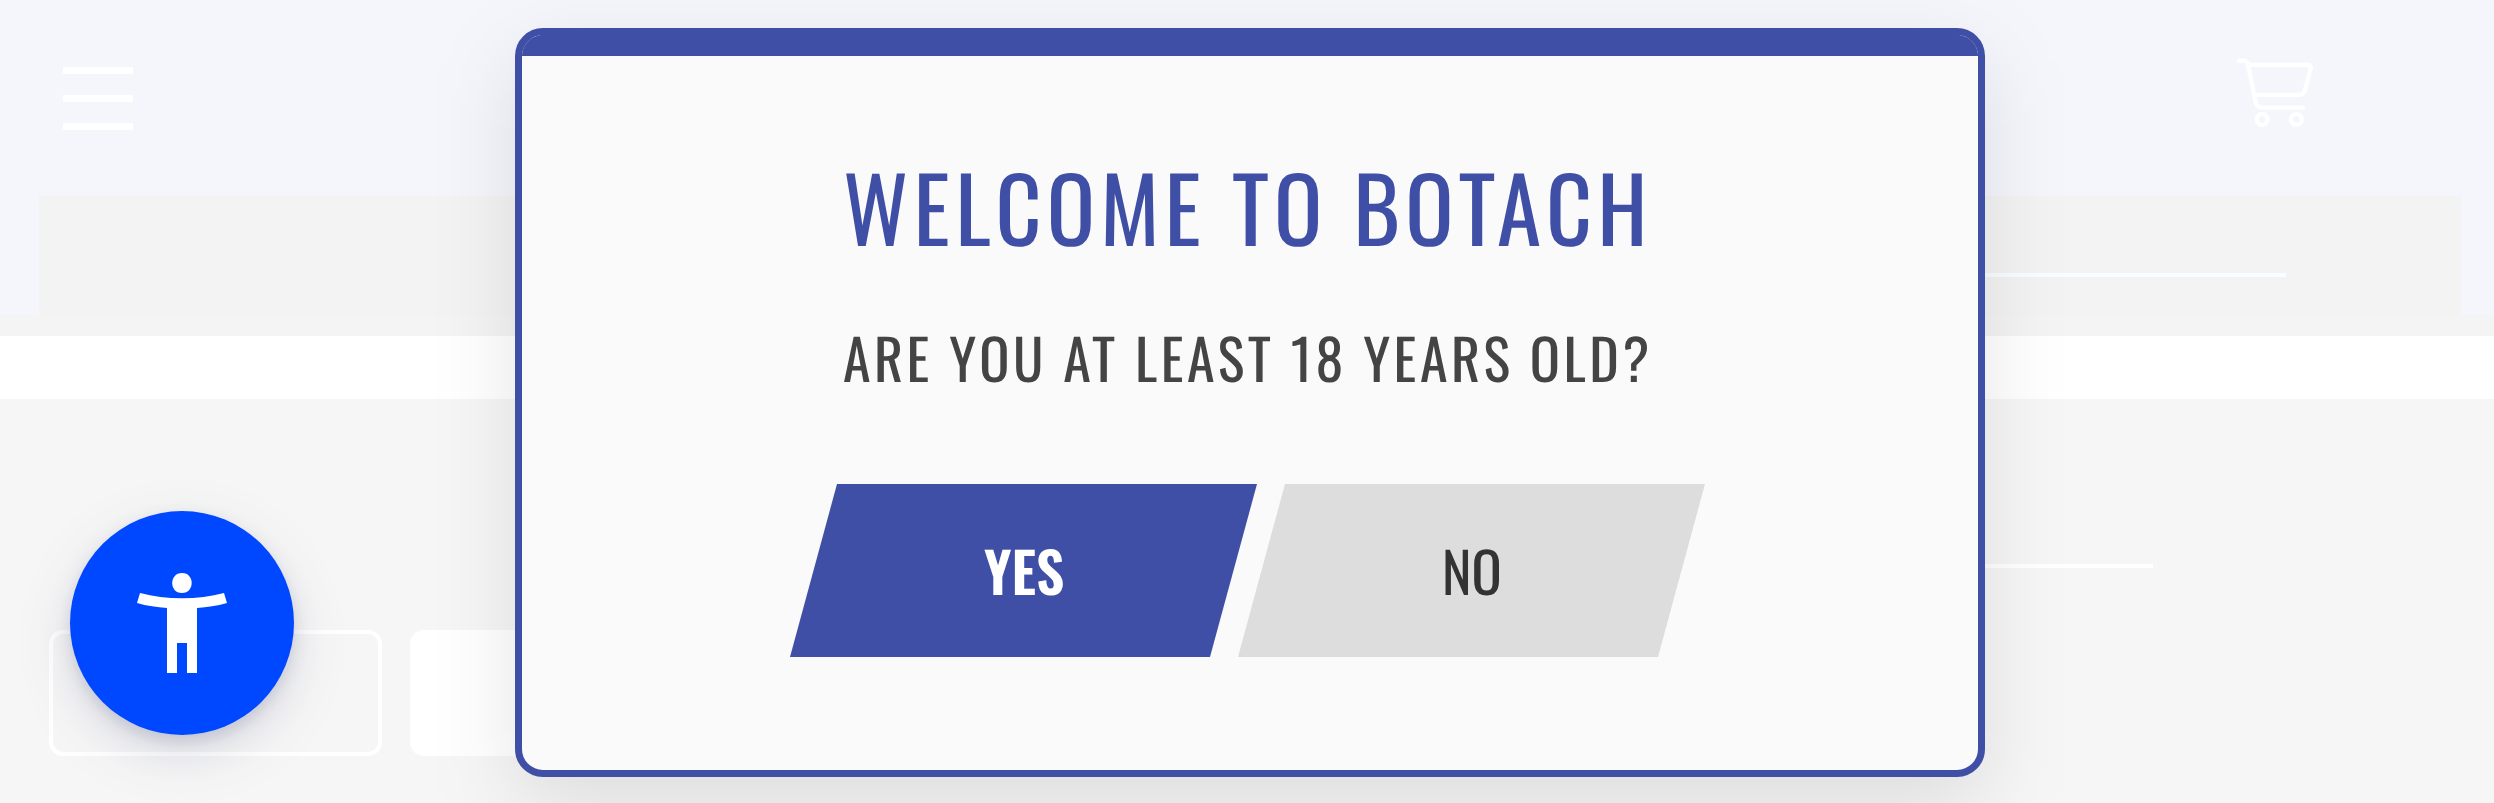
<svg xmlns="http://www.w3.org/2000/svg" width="2494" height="803">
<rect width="100%" height="100%" fill="#fff"/>
<rect width="2494" height="315" fill="#f5f6fb"/>
<rect x="63" y="95" width="70" height="7" fill="#fff"/>
<rect x="63" y="67" width="70" height="7" fill="#fff"/>
<rect x="63" y="123" width="70" height="7" fill="#fff"/>
<image x="2237" y="58" width="76" height="69" href="media/1.png"/>
<rect x="39" y="196" width="2422" height="119" fill="#f3f3f4"/>
<rect x="1985" y="273" width="301" height="4" fill="#f9fdff"/>
<rect y="315" width="2494" height="21" fill="#f4f4f4"/>
<rect y="399" width="2494" height="404" fill="#f6f6f6"/>
<rect x="1985" y="564" width="168" height="4" fill="#fff"/>
<rect x="410" y="630" width="346" height="126" rx="14" fill="#fff"/>
<rect x="515" y="56" width="1470" height="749" rx="28" fill="#0000001a" filter="blur(42px)"/>
<rect x="518.5" y="31.5" width="1463" height="742" rx="24.5" fill="#fafafa" stroke="#404fa6" stroke-width="7"/>
<path d="M543 35h1414c11.5 0 21 9.5 21 21h-1456c0-11.5 9.5-21 21-21z" fill="#404fa6"/>
<text x="843" y="246" style="font-family:Oswald;font-size:89.5px;letter-spacing:5.25px;fill:#404fa6">WELCOME TO BOTACH</text>
<text x="843" y="382" style="font-family:Oswald;font-size:56px;letter-spacing:3.5px;fill:#444">ARE YOU AT LEAST 18 YEARS OLD?</text>
<path d="M837 484h420l-47 173h-420z" fill="#404fa6"/>
<text x="984" y="595" style="font-family:Oswald;font-size:56px;font-weight:600;fill:#fff">YES</text>
<path d="M1285 484h420l-47 173h-420z" fill="#ddd"/>
<text x="1442" y="595" style="font-family:Oswald;font-size:56px;fill:#333">NO</text>
<rect x="51" y="632" width="329" height="122" rx="12" fill="none" stroke="#fff" stroke-width="4"/>
<rect x="70" y="518" width="224" height="224" rx="112" fill="#5d649433" filter="blur(7px)"/>
<rect x="70" y="529" width="224" height="224" rx="112" fill="#252c6126" filter="blur(26px)"/>
<circle cx="182" cy="623" r="112" fill="#0048ff"/>
<path d="M224 593c-26 7-58 7-84 0l-3 10c10 3 20 4 30 5v65h10v-30h10v30h10v-65c10-1 20-2 30-5zm-42 0c13 0 13-20 0-20c-13 0-13 20 0 20z" fill="#fff"/>
</svg>
